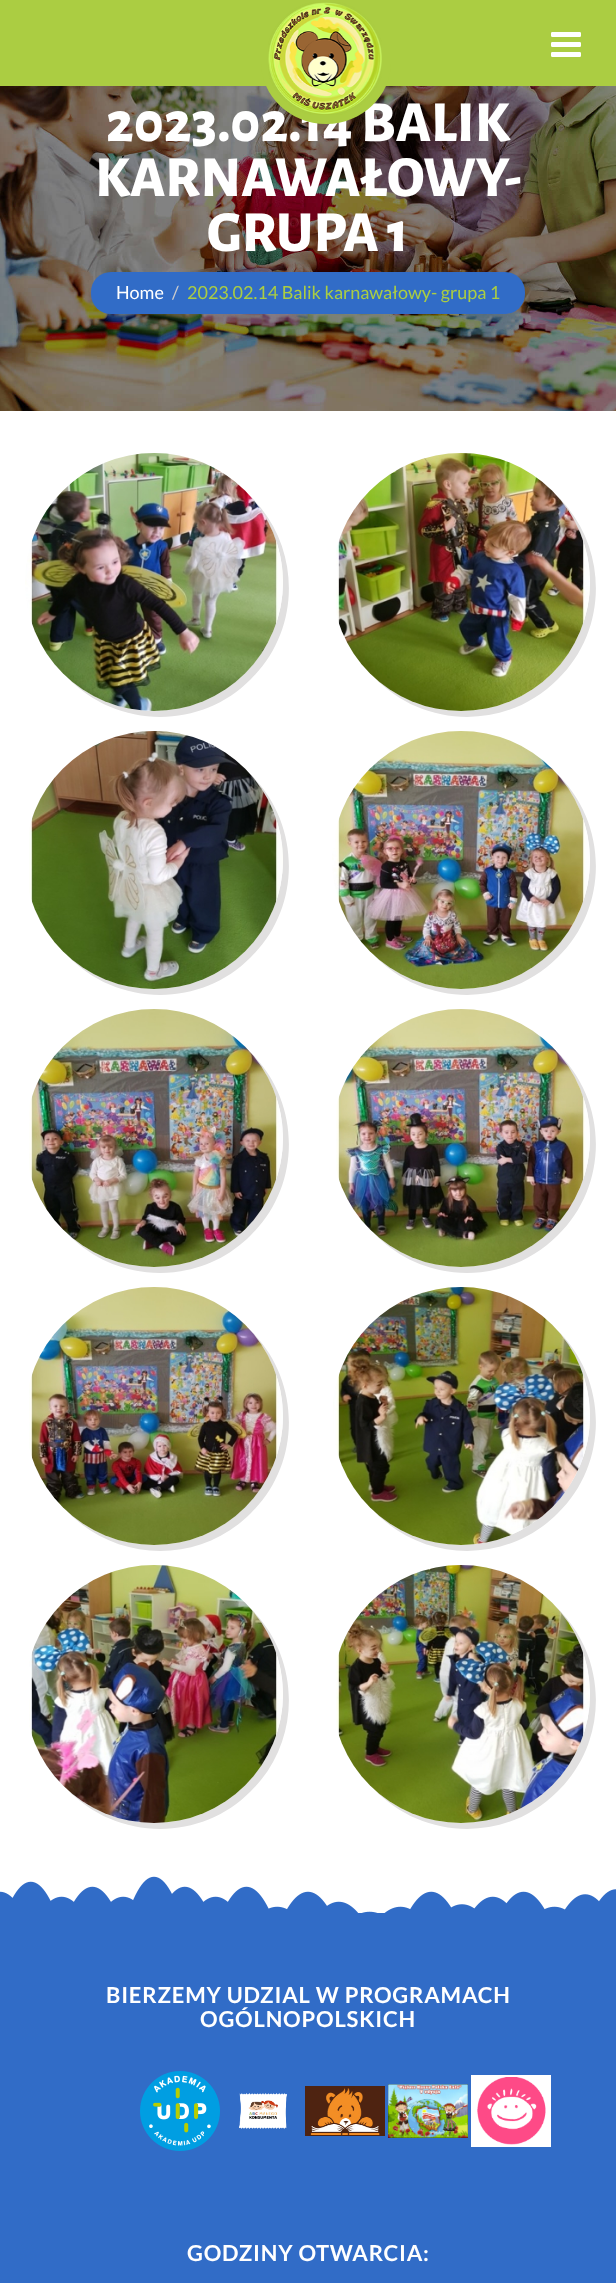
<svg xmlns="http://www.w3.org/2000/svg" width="616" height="2283">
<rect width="100%" height="100%" fill="#fff"/>
<rect width="616" height="86" fill="#abcd42"/>
<image x="0" y="86" width="616" height="325" href="media/3.png"/>
<text x="106" y="141" style="font-family:Alegreya Sans;font-size:58px;font-weight:800;fill:#fff">2023.02.14 BALIK</text>
<path d="M261 0h130v62c0 34-29 62-65 62c-36 0-65-28-65-62z" fill="#abcd42"/>
<image x="268" y="2" width="114" height="113" href="media/1.png"/>
<image x="551" y="32" width="30" height="25" href="media/2.png"/>
<text x="95" y="196" style="font-family:Alegreya Sans;font-size:58px;font-weight:800;fill:#fff">KARNAWAŁOWY-</text>
<text x="207" y="251" style="font-family:Alegreya Sans;font-size:58px;font-weight:800;fill:#fff">GRUPA 1</text>
<rect x="91" y="272" width="434" height="42" rx="20" fill="#316cc7"/>
<text x="116" y="299" style="font-family:Lato;font-size:18px;fill:#fff">Home</text>
<text x="172" y="299" style="font-family:Lato;font-size:18px;fill:#ccc">/</text>
<text x="187" y="299" style="font-family:Lato;font-size:18px;fill:#abcd42">2023.02.14 Balik karnawałowy- grupa 1</text>
<path d="M66 676c49 53 134 55 185 3c52-51 50-136-3-185c47 50 47 130-3 179c-49 50-129 50-179 3z" fill="#e1e0e0"/>
<image x="25" y="453" width="258" height="258" href="media/4.png"/>
<path d="M373 676c49 53 134 55 185 3c52-51 50-136-3-185c47 50 47 130-3 179c-49 50-129 50-179 3z" fill="#e1e0e0"/>
<image x="336" y="453" width="254" height="258" href="media/5.png"/>
<path d="M66 954c49 53 134 55 185 3c52-51 50-136-3-185c47 50 47 130-3 179c-49 50-129 50-179 3z" fill="#e1e0e0"/>
<image x="29" y="731" width="254" height="258" href="media/6.png"/>
<path d="M373 954c49 53 134 55 185 3c52-51 50-136-3-185c47 50 47 130-3 179c-49 50-129 50-179 3z" fill="#e1e0e0"/>
<image x="332" y="731" width="258" height="258" href="media/7.png"/>
<path d="M66 1232c49 53 134 55 185 3c52-51 50-136-3-185c47 50 47 130-3 179c-49 50-129 50-179 3z" fill="#e1e0e0"/>
<image x="29" y="1009" width="254" height="258" href="media/8.png"/>
<path d="M373 1232c49 53 134 55 185 3c52-51 50-136-3-185c47 50 47 130-3 179c-49 50-129 50-179 3z" fill="#e1e0e0"/>
<image x="336" y="1009" width="254" height="258" href="media/9.png"/>
<path d="M66 1510c49 53 134 55 185 3c52-51 50-136-3-185c47 50 47 130-3 179c-49 50-129 50-179 3z" fill="#e1e0e0"/>
<image x="29" y="1287" width="254" height="258" href="media/10.png"/>
<path d="M373 1510c49 53 134 55 185 3c52-51 50-136-3-185c47 50 47 130-3 179c-49 50-129 50-179 3z" fill="#e1e0e0"/>
<image x="333" y="1287" width="257" height="258" href="media/11.png"/>
<path d="M66 1788c49 53 134 55 185 3c52-51 50-136-3-185c47 50 47 130-3 179c-49 50-129 50-179 3z" fill="#e1e0e0"/>
<image x="29" y="1565" width="254" height="258" href="media/12.png"/>
<path d="M373 1788c49 53 134 55 185 3c52-51 50-136-3-185c47 50 47 130-3 179c-49 50-129 50-179 3z" fill="#e1e0e0"/>
<image x="336" y="1565" width="254" height="258" href="media/13.png"/>
<image x="0" y="1876" width="616" height="37" href="media/14.png"/>
<rect y="1913" width="616" height="370" fill="#316cc7"/>
<text x="106" y="2003" style="font-family:Lato;font-size:22px;font-weight:bold;letter-spacing:0.8px;fill:#fff">BIERZEMY UDZIAL W PROGRAMACH</text>
<text x="200" y="2027" style="font-family:Lato;font-size:22px;font-weight:bold;letter-spacing:0.8px;fill:#fff">OGÓLNOPOLSKICH</text>
<image x="140" y="2071" width="80" height="80" href="media/15.png"/>
<image x="239" y="2093" width="48" height="36" href="media/16.png"/>
<image x="305" y="2086" width="80" height="50" href="media/17.png"/>
<image x="388" y="2084" width="80" height="54" href="media/18.png"/>
<image x="471" y="2075" width="80" height="72" href="media/19.png"/>
<text x="187" y="2261" style="font-family:Lato;font-size:22px;font-weight:bold;letter-spacing:0.8px;fill:#fff">GODZINY OTWARCIA:</text>
</svg>
